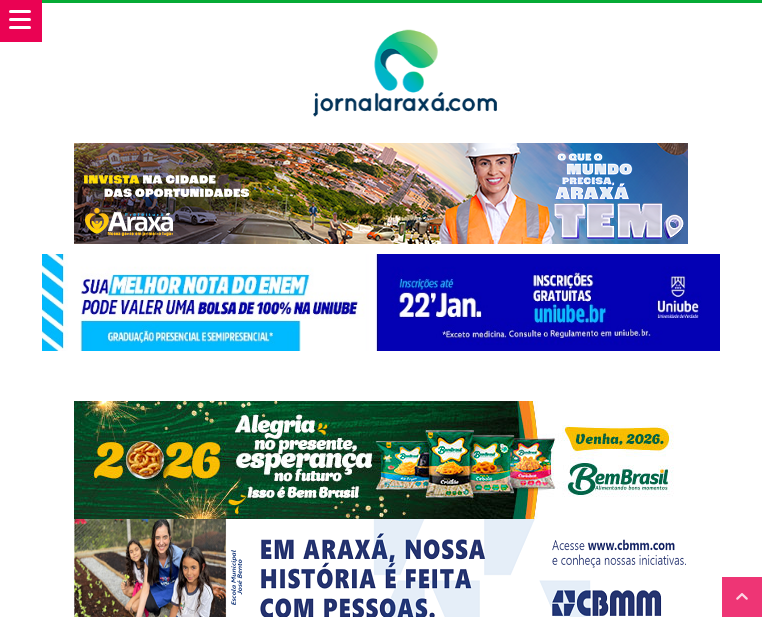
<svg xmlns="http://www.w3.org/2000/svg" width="762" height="617">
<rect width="100%" height="100%" fill="#fff"/>
<rect x="42" width="720" height="3" fill="#06ab35"/>
<rect width="42" height="42" fill="#ea0253"/>
<rect x="9" y="10" width="22" height="3" rx="1.5" fill="#fff"/>
<rect x="9" y="18" width="22" height="3" rx="1.5" fill="#fff"/>
<rect x="9" y="26" width="22" height="3" rx="1.5" fill="#fff"/>
<image x="313" y="29" width="184" height="88" href="media/1.png"/>
<image x="74" y="143" width="614" height="101" href="media/2.png"/>
<image x="42" y="254" width="678" height="97" href="media/3.png"/>
<image x="74" y="401" width="600" height="118" href="media/4.png"/>
<image x="74" y="519" width="612" height="98" href="media/5.png"/>
<rect x="722" y="577" width="40" height="40" fill="#ee3575"/>
<image x="736" y="593" width="12" height="7" href="media/6.png"/>
</svg>
